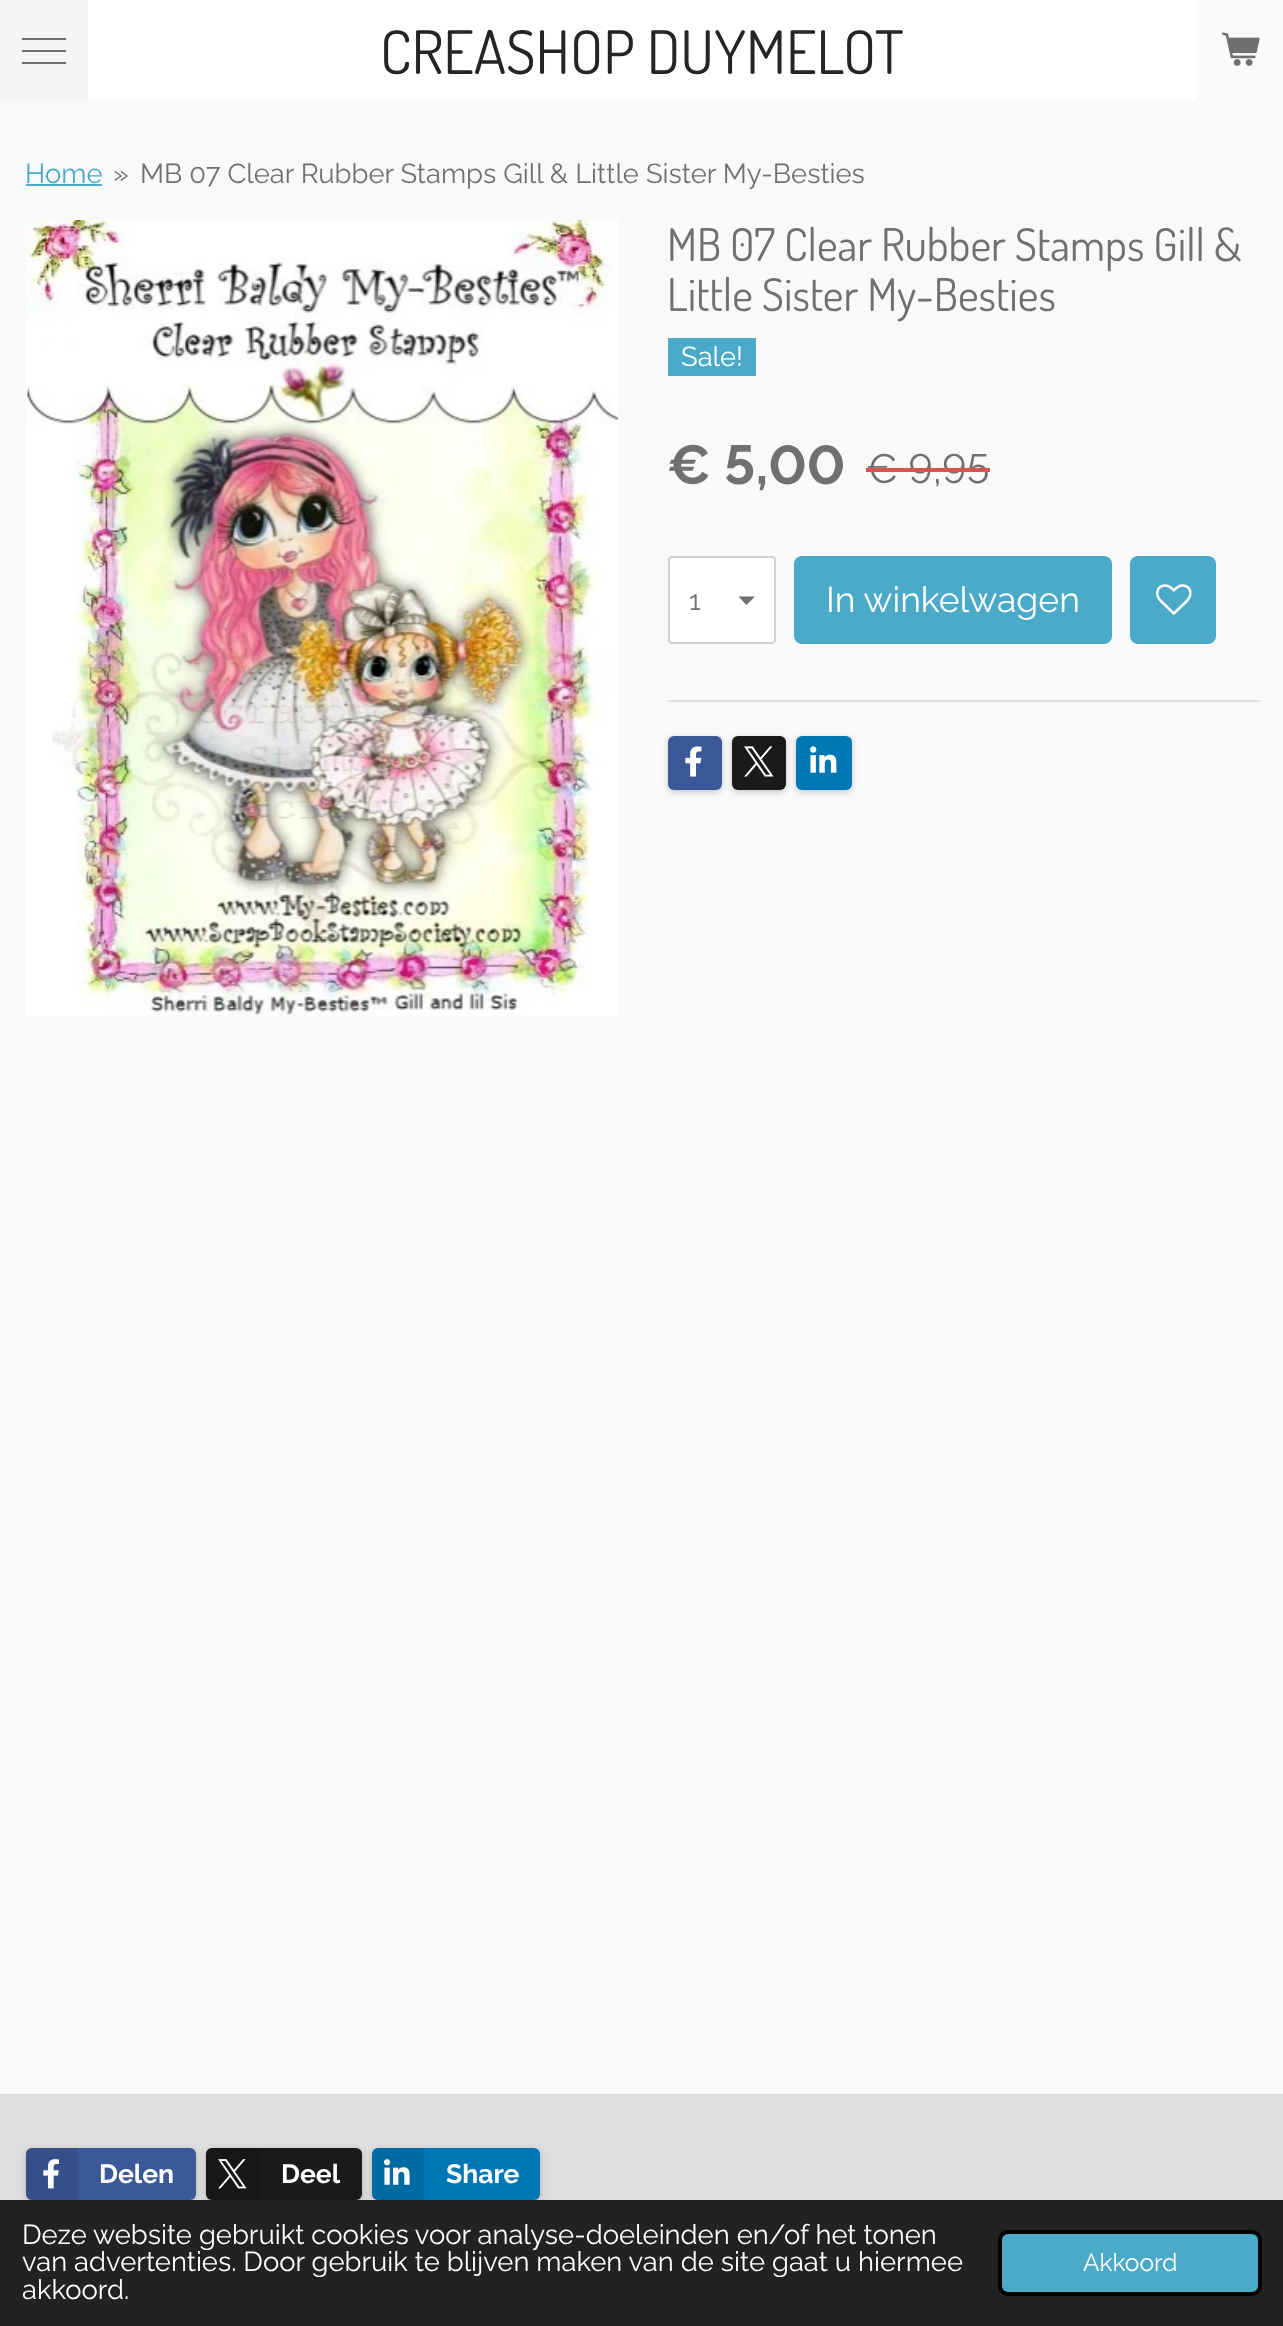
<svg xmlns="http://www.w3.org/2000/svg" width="1283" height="2326">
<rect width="100%" height="100%" fill="#fff"/>
<rect width="88" height="100" fill="#f5f5f5"/>
<rect x="22" y="50" width="44" height="2" fill="#707070"/>
<rect x="22" y="38" width="44" height="2" fill="#707070"/>
<rect x="22" y="62" width="44" height="2" fill="#707070"/>
<text x="380" y="74" style="font-family:Dosis;font-size:60px;fill:#242424">CREASHOP DUYMELOT</text>
<rect x="1196" width="87" height="100" fill="#fafafa"/>
<image x="1222" y="32" width="38" height="34" href="media/1.png"/>
<rect y="100" width="1283" height="1994" fill="#f9f9f9"/>
<text x="25" y="183" style="font-family:Raleway;font-size:27.4px;fill:#4caac9">Home</text>
<rect x="26" y="184" width="76" height="2" fill="#4caac9"/>
<text x="113" y="183" style="font-family:Raleway;font-size:27.4px;fill:#707070">»</text>
<text x="140" y="183" style="font-family:Raleway;font-size:27.4px;fill:#707070">MB 07 Clear Rubber Stamps Gill &amp; Little Sister My-Besties</text>
<image x="26" y="220" width="592" height="796" href="media/2.png"/>
<text x="667" y="261" style="font-family:Dosis;font-size:45px;fill:#707070">MB 07 Clear Rubber Stamps Gill &amp;</text>
<text x="667" y="311" style="font-family:Dosis;font-size:45px;fill:#707070">Little Sister My-Besties</text>
<rect x="668" y="338" width="88" height="38" fill="#4caac9"/>
<text x="681" y="366" style="font-family:Raleway;font-size:27.4px;fill:#fff">Sale!</text>
<text x="667" y="484" style="font-family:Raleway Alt;font-size:55px;font-weight:bold;fill:#707070">€ 5,00</text>
<text x="865" y="483" style="font-family:Raleway Alt;font-size:41px;fill:#707070">€ 9,95</text>
<rect x="866" y="468" width="124" height="4" fill="#d9534f"/>
<rect x="668" y="556" width="108" height="88" rx="4" fill="#fff"/>
<path d="M746.5 605l-8-8.5h16.5z" fill="#707070"/>
<rect x="669" y="557" width="106" height="86" rx="3" fill="none" stroke="#cfcfcf" stroke-width="2"/>
<text x="689" y="610" style="font-family:Raleway;font-size:27.4px;fill:#707070">1</text>
<rect x="794" y="556" width="318" height="88" rx="8" fill="#4caac9"/>
<text x="826" y="612" style="font-family:Raleway;font-size:35.5px;fill:#fff">In winkelwagen</text>
<rect x="1130" y="556" width="86" height="88" rx="8" fill="#4caac9"/>
<image x="1156" y="584" width="36" height="31" href="media/3.png"/>
<rect x="668" y="700" width="592" height="2" fill="#dedede"/>
<rect x="668" y="738" width="54" height="54" rx="6" fill="#00000033" filter="blur(3px)"/>
<rect x="668" y="736" width="54" height="54" rx="6" fill="#3b5998"/>
<image x="685" y="746" width="17" height="31" href="media/4.png"/>
<rect x="732" y="738" width="54" height="54" rx="6" fill="#00000033" filter="blur(3px)"/>
<rect x="732" y="736" width="54" height="54" rx="6" fill="#1a1a1a"/>
<image x="744" y="746" width="30" height="31" href="media/5.png"/>
<rect x="796" y="738" width="56" height="54" rx="6" fill="#00000033" filter="blur(3px)"/>
<rect x="796" y="736" width="56" height="54" rx="6" fill="#0077b5"/>
<image x="810" y="746" width="27" height="27" href="media/6.png"/>
<rect y="2094" width="1283" height="106" fill="#dedede"/>
<rect x="26" y="2150" width="170" height="52" rx="6" fill="#00000033" filter="blur(3px)"/>
<rect x="26" y="2148" width="170" height="52" rx="6" fill="#3b5998"/>
<path d="M32 2148h46v52h-46c-3.5 0-6-2.5-6-6v-40c0-3.5 2.5-6 6-6z" fill="#0000001a"/>
<image x="43" y="2159" width="16" height="30" href="media/7.png"/>
<text x="99" y="2183" style="font-family:Raleway;font-size:26.5px;font-weight:bold;fill:#fff">Delen</text>
<rect x="206" y="2150" width="156" height="52" rx="6" fill="#00000033" filter="blur(3px)"/>
<rect x="206" y="2148" width="156" height="52" rx="6" fill="#1a1a1a"/>
<path d="M212 2148h48v52h-48c-3.5 0-6-2.5-6-6v-40c0-3.5 2.5-6 6-6z" fill="#0000001a"/>
<image x="218" y="2159" width="29" height="30" href="media/8.png"/>
<text x="281" y="2183" style="font-family:Raleway;font-size:26.5px;font-weight:bold;fill:#fff">Deel</text>
<rect x="372" y="2150" width="168" height="52" rx="6" fill="#00000033" filter="blur(3px)"/>
<rect x="372" y="2148" width="168" height="52" rx="6" fill="#0077b5"/>
<path d="M378 2148h46v52h-46c-3.5 0-6-2.5-6-6v-40c0-3.5 2.5-6 6-6z" fill="#0000001a"/>
<image x="384" y="2159" width="26" height="26" href="media/9.png"/>
<text x="446" y="2183" style="font-family:Raleway;font-size:26.5px;font-weight:bold;fill:#fff">Share</text>
<rect y="2200" width="1283" height="126" fill="#222"/>
<text x="22" y="2244" style="font-family:Raleway;font-size:27.4px;fill:#fff">Deze website gebruikt cookies voor analyse-doeleinden en/of het tonen</text>
<text x="22" y="2271" style="font-family:Raleway;font-size:27.4px;fill:#fff">van advertenties. Door gebruik te blijven maken van de site gaat u hiermee</text>
<text x="22" y="2299" style="font-family:Raleway;font-size:27.4px;fill:#fff">akkoord.</text>
<rect x="1000" y="2232" width="260" height="62" rx="8" fill="#4caac9" stroke="#000" stroke-width="4"/>
<text x="1083" y="2271" style="font-family:Raleway;font-size:24.5px;fill:#fff">Akkoord</text>
</svg>
